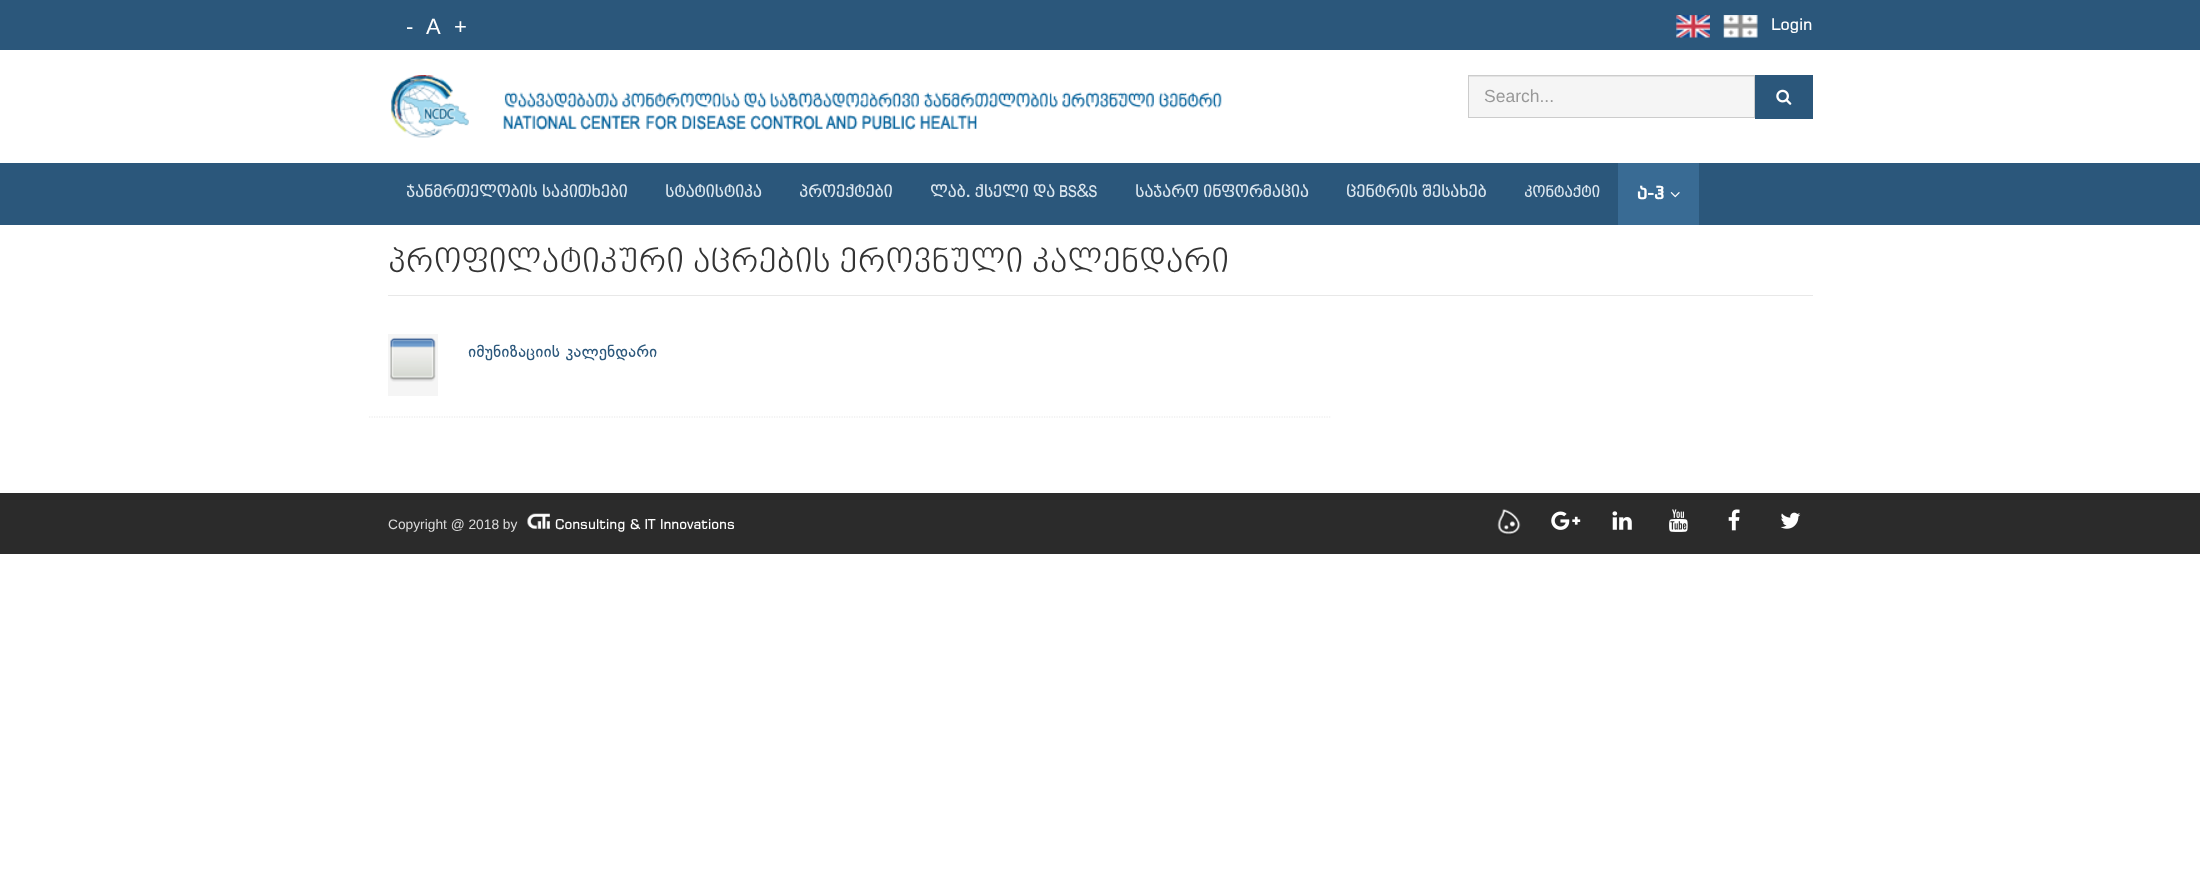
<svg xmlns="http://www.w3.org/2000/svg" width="2200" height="871">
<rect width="100%" height="100%" fill="#fff"/>
<rect width="2200" height="50" fill="#2b577b"/>
<text x="406" y="34" style="font-family:Liberation Sans;font-size:22px;fill:#fff">-</text>
<text x="426" y="34" style="font-family:Liberation Sans;font-size:22px;fill:#fff">A</text>
<text x="454" y="34" style="font-family:Liberation Sans;font-size:22px;fill:#fff">+</text>
<image x="1676" y="15" width="34" height="23" href="media/1.png"/>
<image x="1723" y="15" width="35" height="23" href="media/2.png"/>
<text x="1771" y="30" style="font-family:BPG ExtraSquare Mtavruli;font-size:16.25px;fill:#fff">Login</text>
<image x="390" y="75" width="832" height="63" href="media/3.png"/>
<rect x="1469" y="77" width="285" height="40" fill="#f5f5f5"/>
<rect x="1469" y="76" width="285" height="1" fill="#e3e3e3"/>
<rect x="1468.5" y="75.5" width="286" height="42" fill="none" stroke="#ccc"/>
<text x="1484" y="102" style="font-family:Liberation Sans;font-size:17.5px;fill:#999">Search...</text>
<rect x="1755" y="75" width="58" height="44" fill="#2b577b"/>
<image x="1776" y="89" width="16" height="16" href="media/4.png"/>
<rect y="163" width="2200" height="62" fill="#2b577b"/>
<text x="406" y="197" style="font-family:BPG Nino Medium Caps;font-size:17.5px;font-weight:bold;fill:#dce7f0">ჯანმრთელობის საკითხები</text>
<text x="665" y="197" style="font-family:BPG Nino Medium Caps;font-size:17.5px;font-weight:bold;fill:#dce7f0">სტატისტიკა</text>
<text x="799" y="197" style="font-family:BPG Nino Medium Caps;font-size:17.5px;font-weight:bold;fill:#dce7f0">პროექტები</text>
<text x="930" y="197" style="font-family:BPG Nino Medium Caps;font-size:17.5px;font-weight:bold;fill:#dce7f0">ლაბ. ქსელი და BS&amp;S</text>
<text x="1135" y="197" style="font-family:BPG Nino Medium Caps;font-size:17.5px;font-weight:bold;fill:#dce7f0">საჯარო ინფორმაცია</text>
<text x="1346" y="197" style="font-family:BPG Nino Medium Caps;font-size:17.5px;font-weight:bold;fill:#dce7f0">ცენტრის შესახებ</text>
<text x="1524" y="197" style="font-family:BPG Nino Medium Caps;font-size:16.25px;font-weight:bold;fill:#dce7f0">კონტაქტი</text>
<rect x="1618" y="163" width="81" height="62" fill="#396b94"/>
<text x="1637" y="199" style="font-family:BPG ExtraSquare Mtavruli;font-size:17.5px;font-weight:bold;fill:#fff">ა-ჰ</text>
<image x="1670" y="192" width="10" height="6" href="media/5.png"/>
<rect x="388" y="295" width="1425" height="1" fill="#e8e8e8"/>
<text x="388" y="272" style="font-family:BPG Nino Medium Caps;font-size:35px;font-weight:500;fill:#333">პროფილატიკური აცრების ეროვნული კალენდარი</text>
<path d="M369 417h962" fill="none" stroke="#e8e8e8" stroke-width="1.2" stroke-dasharray="1.25 1.25"/>
<rect x="388" y="334" width="50" height="62" fill="#f5f5f5"/>
<image x="390" y="337" width="46" height="45" href="media/6.png"/>
<text x="468" y="357" style="font-family:DejaVu Sans;font-size:16.25px;fill:#2b577b">იმუნიზაციის კალენდარი</text>
<rect y="493" width="2200" height="61" fill="#2b2b2b"/>
<text x="388" y="529" style="font-family:Liberation Sans;font-size:13.75px;fill:#dcdcdc">Copyright @ 2018 by</text>
<image x="527" y="513" width="23" height="16" href="media/7.png"/>
<text x="555" y="529" style="font-family:BPG ExtraSquare Mtavruli;font-size:13.75px;fill:#fff">Consulting &amp; IT Innovations</text>
<image x="1497" y="509" width="24" height="27" href="media/8.png"/>
<image x="1551" y="511" width="30" height="19" href="media/9.png"/>
<image x="1612" y="511" width="20" height="19" href="media/10.png"/>
<image x="1669" y="509" width="19" height="23" href="media/11.png"/>
<image x="1728" y="509" width="12" height="22" href="media/12.png"/>
<image x="1780" y="512" width="21" height="17" href="media/13.png"/>
</svg>
